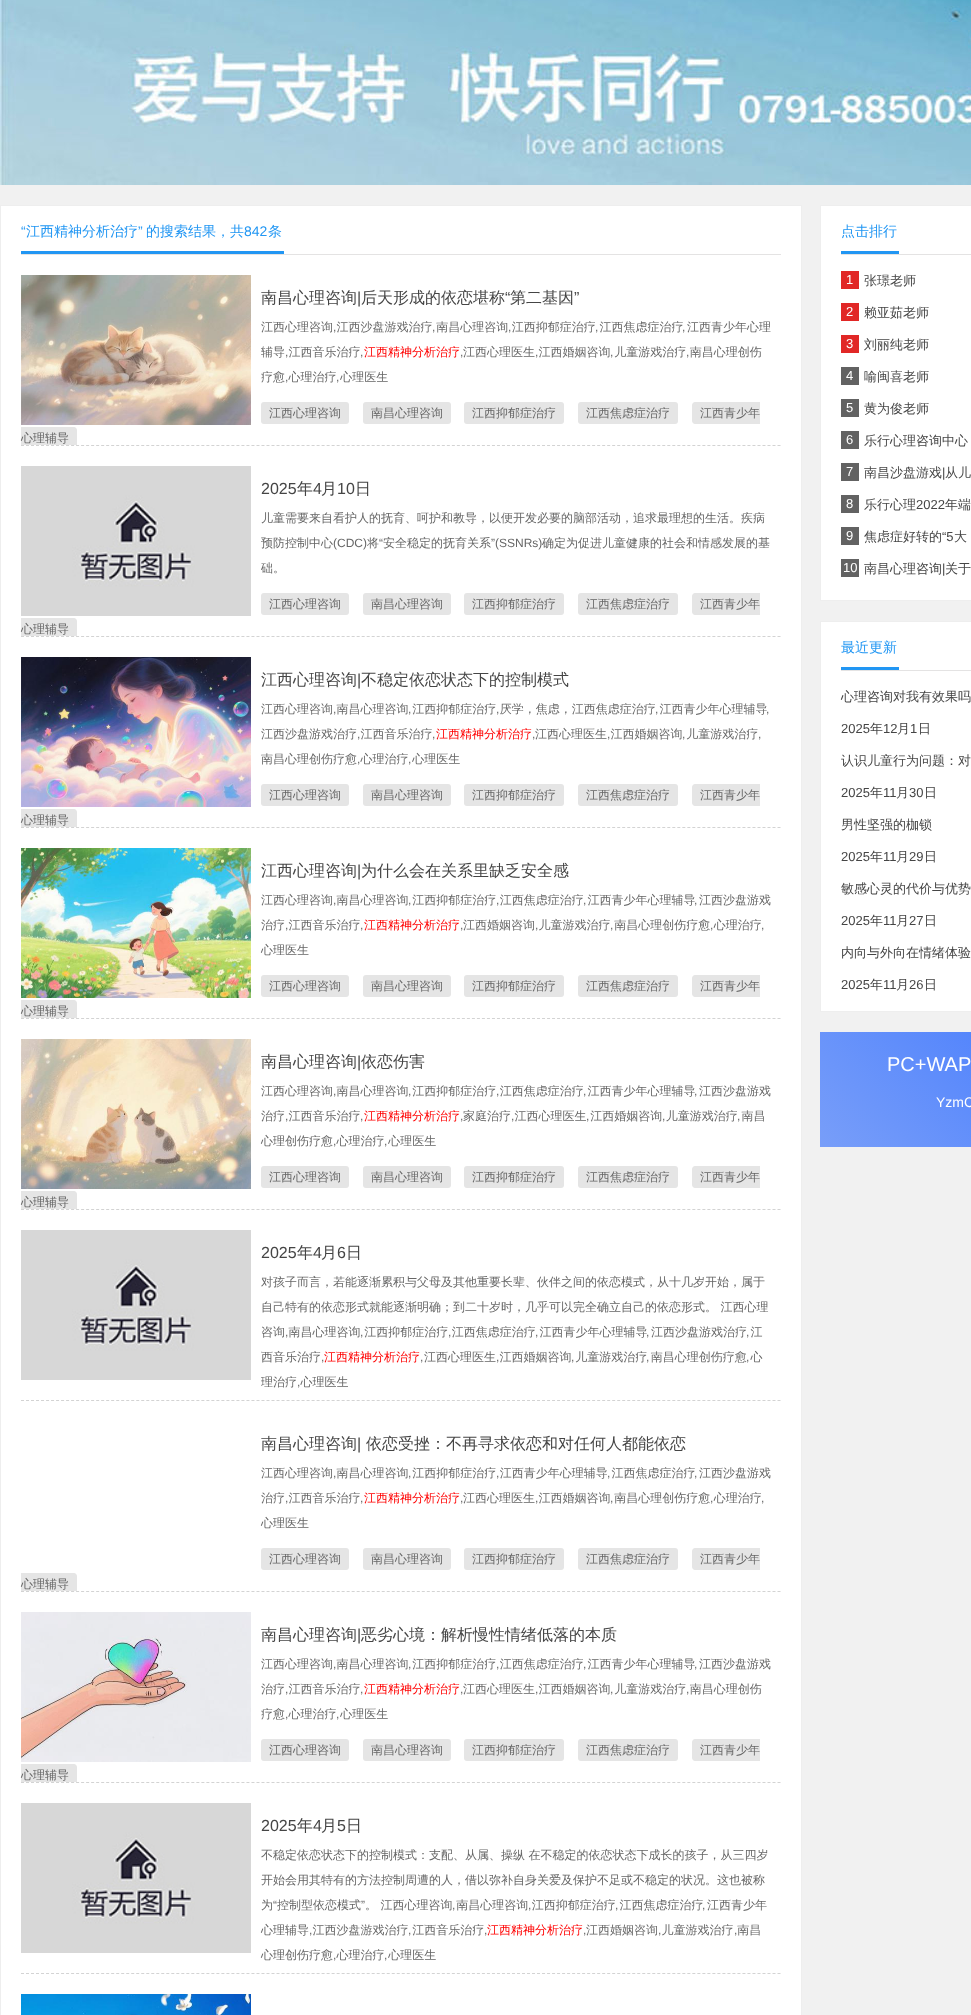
<svg xmlns="http://www.w3.org/2000/svg" width="971" height="2015">
<defs>
<linearGradient id="g1" gradientUnits="userSpaceOnUse" x1="879" y1="1206" x2="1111" y2="973"><stop offset="0" stop-color="#789ef9"/><stop offset="1" stop-color="#3b74fe"/></linearGradient>
</defs>
<rect width="100%" height="100%" fill="#f1f1f1"/>
<image x="0" y="0" width="971" height="185" href="media/1.png"/>
<rect x="0.5" y="205.5" width="801" height="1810" fill="#fff" stroke="#eee"/>
<rect x="21" y="254" width="760" height="1" fill="#e4e3e3"/>
<rect x="21" y="251" width="263" height="3" fill="#2196f3"/>
<text x="21" y="236" style="font-family:Liberation Sans;font-size:14px;fill:#2196f3">“</text>
<text x="26" y="236" style="font-family:WenQuanYi Zen Hei;font-size:14px;font-weight:500;fill:#2196f3">江西精神分析治疗</text>
<text x="138" y="236" style="font-family:Liberation Sans;font-size:14px;fill:#2196f3">”</text>
<text x="146" y="236" style="font-family:WenQuanYi Zen Hei;font-size:14px;font-weight:500;fill:#2196f3">的搜索结果，共</text>
<text x="244" y="236" style="font-family:Liberation Sans;font-size:14px;fill:#2196f3">842</text>
<text x="268" y="236" style="font-family:WenQuanYi Zen Hei;font-size:14px;font-weight:500;fill:#2196f3">条</text>
<path d="M21 445.5h760" fill="none" stroke="#d3d3d3" stroke-dasharray="3 2.01"/>
<image x="21" y="275" width="230" height="150" href="media/2.png"/>
<text x="261" y="303" style="font-family:WenQuanYi Zen Hei;font-size:16px;font-weight:500;fill:#454545">南昌心理咨询</text>
<text x="357" y="303" style="font-family:Liberation Sans;font-size:16px;fill:#454545">|</text>
<text x="361" y="303" style="font-family:WenQuanYi Zen Hei;font-size:16px;font-weight:500;fill:#454545">后天形成的依恋堪称</text>
<text x="505" y="303" style="font-family:Liberation Sans;font-size:16px;fill:#454545">“</text>
<text x="510" y="303" style="font-family:WenQuanYi Zen Hei;font-size:16px;font-weight:500;fill:#454545">第二基因</text>
<text x="574" y="303" style="font-family:Liberation Sans;font-size:16px;fill:#454545">”</text>
<text x="261" y="331" style="font-family:WenQuanYi Zen Hei;font-size:12px;font-weight:500;fill:#666">江西心理咨询 江西沙盘游戏治疗 南昌心理咨询 江西抑郁症治疗 江西焦虑症治疗 江西青少年心理</text>
<text x="333" y="331" style="font-family:Liberation Sans;font-size:12px;fill:#666">,</text>
<text x="432" y="331" style="font-family:Liberation Sans;font-size:12px;fill:#666">,</text>
<text x="508" y="331" style="font-family:Liberation Sans;font-size:12px;fill:#666">,</text>
<text x="595" y="331" style="font-family:Liberation Sans;font-size:12px;fill:#666">,</text>
<text x="682" y="331" style="font-family:Liberation Sans;font-size:12px;fill:#666">,</text>
<text x="261" y="356" style="font-family:WenQuanYi Zen Hei;font-size:12px;font-weight:500;fill:#666">辅导 江西音乐治疗</text>
<text x="364" y="356" style="font-family:WenQuanYi Zen Hei;font-size:12px;font-weight:500;fill:#f00">江西精神分析治疗</text>
<text x="463" y="356" style="font-family:WenQuanYi Zen Hei;font-size:12px;font-weight:500;fill:#666">江西心理医生 江西婚姻咨询 儿童游戏治疗 南昌心理创伤</text>
<text x="285" y="356" style="font-family:Liberation Sans;font-size:12px;fill:#666">,</text>
<text x="360" y="356" style="font-family:Liberation Sans;font-size:12px;fill:#666">,</text>
<text x="460" y="356" style="font-family:Liberation Sans;font-size:12px;fill:#666">,</text>
<text x="535" y="356" style="font-family:Liberation Sans;font-size:12px;fill:#666">,</text>
<text x="610" y="356" style="font-family:Liberation Sans;font-size:12px;fill:#666">,</text>
<text x="686" y="356" style="font-family:Liberation Sans;font-size:12px;fill:#666">,</text>
<text x="261" y="381" style="font-family:WenQuanYi Zen Hei;font-size:12px;font-weight:500;fill:#666">疗愈 心理治疗 心理医生</text>
<text x="285" y="381" style="font-family:Liberation Sans;font-size:12px;fill:#666">,</text>
<text x="336" y="381" style="font-family:Liberation Sans;font-size:12px;fill:#666">,</text>
<rect x="261" y="402" width="88" height="22" rx="3" fill="#e5e5e5"/>
<text x="269" y="417" style="font-family:WenQuanYi Zen Hei;font-size:12px;font-weight:500;fill:#666">江西心理咨询</text>
<rect x="363" y="402" width="88" height="22" rx="3" fill="#e5e5e5"/>
<text x="371" y="417" style="font-family:WenQuanYi Zen Hei;font-size:12px;font-weight:500;fill:#666">南昌心理咨询</text>
<rect x="464" y="402" width="100" height="22" rx="3" fill="#e5e5e5"/>
<text x="472" y="417" style="font-family:WenQuanYi Zen Hei;font-size:12px;font-weight:500;fill:#666">江西抑郁症治疗</text>
<rect x="578" y="402" width="100" height="22" rx="3" fill="#e5e5e5"/>
<text x="586" y="417" style="font-family:WenQuanYi Zen Hei;font-size:12px;font-weight:500;fill:#666">江西焦虑症治疗</text>
<path d="M695 402h65v22h-65c-1.5 0-3-1.5-3-3v-16c0-1.5 1.5-3 3-3z" fill="#e5e5e5"/>
<text x="700" y="417" style="font-family:WenQuanYi Zen Hei;font-size:12px;font-weight:500;fill:#666">江西青少年</text>
<path d="M21 427h53c1.5 0 3 1.5 3 3v15h-56z" fill="#e5e5e5"/>
<text x="21" y="442" style="font-family:WenQuanYi Zen Hei;font-size:12px;font-weight:500;fill:#666">心理辅导</text>
<path d="M21 636.5h760" fill="none" stroke="#d3d3d3" stroke-dasharray="3 2.01"/>
<image x="21" y="466" width="230" height="150" href="media/3.png"/>
<text x="261" y="494" style="font-family:Liberation Sans;font-size:16px;fill:#454545">2025</text>
<text x="297" y="494" style="font-family:WenQuanYi Zen Hei;font-size:16px;font-weight:500;fill:#454545">年</text>
<text x="313" y="494" style="font-family:Liberation Sans;font-size:16px;fill:#454545">4</text>
<text x="321" y="494" style="font-family:WenQuanYi Zen Hei;font-size:16px;font-weight:500;fill:#454545">月</text>
<text x="337" y="494" style="font-family:Liberation Sans;font-size:16px;fill:#454545">10</text>
<text x="355" y="494" style="font-family:WenQuanYi Zen Hei;font-size:16px;font-weight:500;fill:#454545">日</text>
<text x="261" y="522" style="font-family:WenQuanYi Zen Hei;font-size:12px;font-weight:500;fill:#666">儿童需要来自看护人的抚育、呵护和教导，以便开发必要的脑部活动，追求最理想的生活。疾病</text>
<text x="261" y="547" style="font-family:WenQuanYi Zen Hei;font-size:12px;font-weight:500;fill:#666">预防控制中心</text>
<text x="333" y="547" style="font-family:Liberation Sans;font-size:12px;fill:#666">(CDC)</text>
<text x="367" y="547" style="font-family:WenQuanYi Zen Hei;font-size:12px;font-weight:500;fill:#666">将</text>
<text x="379" y="547" style="font-family:Liberation Sans;font-size:12px;fill:#666">“</text>
<text x="383" y="547" style="font-family:WenQuanYi Zen Hei;font-size:12px;font-weight:500;fill:#666">安全稳定的抚育关系</text>
<text x="491" y="547" style="font-family:Liberation Sans;font-size:12px;fill:#666">”(SSNRs)</text>
<text x="542" y="547" style="font-family:WenQuanYi Zen Hei;font-size:12px;font-weight:500;fill:#666">确定为促进儿童健康的社会和情感发展的基</text>
<text x="261" y="572" style="font-family:WenQuanYi Zen Hei;font-size:12px;font-weight:500;fill:#666">础。</text>
<rect x="261" y="593" width="88" height="22" rx="3" fill="#e5e5e5"/>
<text x="269" y="608" style="font-family:WenQuanYi Zen Hei;font-size:12px;font-weight:500;fill:#666">江西心理咨询</text>
<rect x="363" y="593" width="88" height="22" rx="3" fill="#e5e5e5"/>
<text x="371" y="608" style="font-family:WenQuanYi Zen Hei;font-size:12px;font-weight:500;fill:#666">南昌心理咨询</text>
<rect x="464" y="593" width="100" height="22" rx="3" fill="#e5e5e5"/>
<text x="472" y="608" style="font-family:WenQuanYi Zen Hei;font-size:12px;font-weight:500;fill:#666">江西抑郁症治疗</text>
<rect x="578" y="593" width="100" height="22" rx="3" fill="#e5e5e5"/>
<text x="586" y="608" style="font-family:WenQuanYi Zen Hei;font-size:12px;font-weight:500;fill:#666">江西焦虑症治疗</text>
<path d="M695 593h65v22h-65c-1.5 0-3-1.5-3-3v-16c0-1.5 1.5-3 3-3z" fill="#e5e5e5"/>
<text x="700" y="608" style="font-family:WenQuanYi Zen Hei;font-size:12px;font-weight:500;fill:#666">江西青少年</text>
<path d="M21 618h53c1.5 0 3 1.5 3 3v15h-56z" fill="#e5e5e5"/>
<text x="21" y="633" style="font-family:WenQuanYi Zen Hei;font-size:12px;font-weight:500;fill:#666">心理辅导</text>
<path d="M21 827.5h760" fill="none" stroke="#d3d3d3" stroke-dasharray="3 2.01"/>
<image x="21" y="657" width="230" height="150" href="media/4.png"/>
<text x="261" y="685" style="font-family:WenQuanYi Zen Hei;font-size:16px;font-weight:500;fill:#454545">江西心理咨询</text>
<text x="357" y="685" style="font-family:Liberation Sans;font-size:16px;fill:#454545">|</text>
<text x="361" y="685" style="font-family:WenQuanYi Zen Hei;font-size:16px;font-weight:500;fill:#454545">不稳定依恋状态下的控制模式</text>
<text x="261" y="713" style="font-family:WenQuanYi Zen Hei;font-size:12px;font-weight:500;fill:#666">江西心理咨询 南昌心理咨询 江西抑郁症治疗 厌学，焦虑，江西焦虑症治疗 江西青少年心理辅导</text>
<text x="333" y="713" style="font-family:Liberation Sans;font-size:12px;fill:#666">,</text>
<text x="408" y="713" style="font-family:Liberation Sans;font-size:12px;fill:#666">,</text>
<text x="496" y="713" style="font-family:Liberation Sans;font-size:12px;fill:#666">,</text>
<text x="655" y="713" style="font-family:Liberation Sans;font-size:12px;fill:#666">,</text>
<text x="766" y="713" style="font-family:Liberation Sans;font-size:12px;fill:#666">,</text>
<text x="261" y="738" style="font-family:WenQuanYi Zen Hei;font-size:12px;font-weight:500;fill:#666">江西沙盘游戏治疗 江西音乐治疗</text>
<text x="436" y="738" style="font-family:WenQuanYi Zen Hei;font-size:12px;font-weight:500;fill:#f00">江西精神分析治疗</text>
<text x="535" y="738" style="font-family:WenQuanYi Zen Hei;font-size:12px;font-weight:500;fill:#666">江西心理医生 江西婚姻咨询 儿童游戏治疗</text>
<text x="357" y="738" style="font-family:Liberation Sans;font-size:12px;fill:#666">,</text>
<text x="432" y="738" style="font-family:Liberation Sans;font-size:12px;fill:#666">,</text>
<text x="532" y="738" style="font-family:Liberation Sans;font-size:12px;fill:#666">,</text>
<text x="607" y="738" style="font-family:Liberation Sans;font-size:12px;fill:#666">,</text>
<text x="682" y="738" style="font-family:Liberation Sans;font-size:12px;fill:#666">,</text>
<text x="758" y="738" style="font-family:Liberation Sans;font-size:12px;fill:#666">,</text>
<text x="261" y="763" style="font-family:WenQuanYi Zen Hei;font-size:12px;font-weight:500;fill:#666">南昌心理创伤疗愈 心理治疗 心理医生</text>
<text x="357" y="763" style="font-family:Liberation Sans;font-size:12px;fill:#666">,</text>
<text x="408" y="763" style="font-family:Liberation Sans;font-size:12px;fill:#666">,</text>
<rect x="261" y="784" width="88" height="22" rx="3" fill="#e5e5e5"/>
<text x="269" y="799" style="font-family:WenQuanYi Zen Hei;font-size:12px;font-weight:500;fill:#666">江西心理咨询</text>
<rect x="363" y="784" width="88" height="22" rx="3" fill="#e5e5e5"/>
<text x="371" y="799" style="font-family:WenQuanYi Zen Hei;font-size:12px;font-weight:500;fill:#666">南昌心理咨询</text>
<rect x="464" y="784" width="100" height="22" rx="3" fill="#e5e5e5"/>
<text x="472" y="799" style="font-family:WenQuanYi Zen Hei;font-size:12px;font-weight:500;fill:#666">江西抑郁症治疗</text>
<rect x="578" y="784" width="100" height="22" rx="3" fill="#e5e5e5"/>
<text x="586" y="799" style="font-family:WenQuanYi Zen Hei;font-size:12px;font-weight:500;fill:#666">江西焦虑症治疗</text>
<path d="M695 784h65v22h-65c-1.5 0-3-1.5-3-3v-16c0-1.5 1.5-3 3-3z" fill="#e5e5e5"/>
<text x="700" y="799" style="font-family:WenQuanYi Zen Hei;font-size:12px;font-weight:500;fill:#666">江西青少年</text>
<path d="M21 809h53c1.5 0 3 1.5 3 3v15h-56z" fill="#e5e5e5"/>
<text x="21" y="824" style="font-family:WenQuanYi Zen Hei;font-size:12px;font-weight:500;fill:#666">心理辅导</text>
<path d="M21 1018.5h760" fill="none" stroke="#d3d3d3" stroke-dasharray="3 2.01"/>
<image x="21" y="848" width="230" height="150" href="media/5.png"/>
<text x="261" y="876" style="font-family:WenQuanYi Zen Hei;font-size:16px;font-weight:500;fill:#454545">江西心理咨询</text>
<text x="357" y="876" style="font-family:Liberation Sans;font-size:16px;fill:#454545">|</text>
<text x="361" y="876" style="font-family:WenQuanYi Zen Hei;font-size:16px;font-weight:500;fill:#454545">为什么会在关系里缺乏安全感</text>
<text x="261" y="904" style="font-family:WenQuanYi Zen Hei;font-size:12px;font-weight:500;fill:#666">江西心理咨询 南昌心理咨询 江西抑郁症治疗 江西焦虑症治疗 江西青少年心理辅导 江西沙盘游戏</text>
<text x="333" y="904" style="font-family:Liberation Sans;font-size:12px;fill:#666">,</text>
<text x="408" y="904" style="font-family:Liberation Sans;font-size:12px;fill:#666">,</text>
<text x="496" y="904" style="font-family:Liberation Sans;font-size:12px;fill:#666">,</text>
<text x="583" y="904" style="font-family:Liberation Sans;font-size:12px;fill:#666">,</text>
<text x="694" y="904" style="font-family:Liberation Sans;font-size:12px;fill:#666">,</text>
<text x="261" y="929" style="font-family:WenQuanYi Zen Hei;font-size:12px;font-weight:500;fill:#666">治疗 江西音乐治疗</text>
<text x="364" y="929" style="font-family:WenQuanYi Zen Hei;font-size:12px;font-weight:500;fill:#f00">江西精神分析治疗</text>
<text x="463" y="929" style="font-family:WenQuanYi Zen Hei;font-size:12px;font-weight:500;fill:#666">江西婚姻咨询 儿童游戏治疗 南昌心理创伤疗愈 心理治疗</text>
<text x="285" y="929" style="font-family:Liberation Sans;font-size:12px;fill:#666">,</text>
<text x="360" y="929" style="font-family:Liberation Sans;font-size:12px;fill:#666">,</text>
<text x="460" y="929" style="font-family:Liberation Sans;font-size:12px;fill:#666">,</text>
<text x="535" y="929" style="font-family:Liberation Sans;font-size:12px;fill:#666">,</text>
<text x="610" y="929" style="font-family:Liberation Sans;font-size:12px;fill:#666">,</text>
<text x="710" y="929" style="font-family:Liberation Sans;font-size:12px;fill:#666">,</text>
<text x="761" y="929" style="font-family:Liberation Sans;font-size:12px;fill:#666">,</text>
<text x="261" y="954" style="font-family:WenQuanYi Zen Hei;font-size:12px;font-weight:500;fill:#666">心理医生</text>
<rect x="261" y="975" width="88" height="22" rx="3" fill="#e5e5e5"/>
<text x="269" y="990" style="font-family:WenQuanYi Zen Hei;font-size:12px;font-weight:500;fill:#666">江西心理咨询</text>
<rect x="363" y="975" width="88" height="22" rx="3" fill="#e5e5e5"/>
<text x="371" y="990" style="font-family:WenQuanYi Zen Hei;font-size:12px;font-weight:500;fill:#666">南昌心理咨询</text>
<rect x="464" y="975" width="100" height="22" rx="3" fill="#e5e5e5"/>
<text x="472" y="990" style="font-family:WenQuanYi Zen Hei;font-size:12px;font-weight:500;fill:#666">江西抑郁症治疗</text>
<rect x="578" y="975" width="100" height="22" rx="3" fill="#e5e5e5"/>
<text x="586" y="990" style="font-family:WenQuanYi Zen Hei;font-size:12px;font-weight:500;fill:#666">江西焦虑症治疗</text>
<path d="M695 975h65v22h-65c-1.5 0-3-1.5-3-3v-16c0-1.5 1.5-3 3-3z" fill="#e5e5e5"/>
<text x="700" y="990" style="font-family:WenQuanYi Zen Hei;font-size:12px;font-weight:500;fill:#666">江西青少年</text>
<path d="M21 1000h53c1.5 0 3 1.5 3 3v15h-56z" fill="#e5e5e5"/>
<text x="21" y="1015" style="font-family:WenQuanYi Zen Hei;font-size:12px;font-weight:500;fill:#666">心理辅导</text>
<path d="M21 1209.5h760" fill="none" stroke="#d3d3d3" stroke-dasharray="3 2.01"/>
<image x="21" y="1039" width="230" height="150" href="media/6.png"/>
<text x="261" y="1067" style="font-family:WenQuanYi Zen Hei;font-size:16px;font-weight:500;fill:#454545">南昌心理咨询</text>
<text x="357" y="1067" style="font-family:Liberation Sans;font-size:16px;fill:#454545">|</text>
<text x="361" y="1067" style="font-family:WenQuanYi Zen Hei;font-size:16px;font-weight:500;fill:#454545">依恋伤害</text>
<text x="261" y="1095" style="font-family:WenQuanYi Zen Hei;font-size:12px;font-weight:500;fill:#666">江西心理咨询 南昌心理咨询 江西抑郁症治疗 江西焦虑症治疗 江西青少年心理辅导 江西沙盘游戏</text>
<text x="333" y="1095" style="font-family:Liberation Sans;font-size:12px;fill:#666">,</text>
<text x="408" y="1095" style="font-family:Liberation Sans;font-size:12px;fill:#666">,</text>
<text x="496" y="1095" style="font-family:Liberation Sans;font-size:12px;fill:#666">,</text>
<text x="583" y="1095" style="font-family:Liberation Sans;font-size:12px;fill:#666">,</text>
<text x="694" y="1095" style="font-family:Liberation Sans;font-size:12px;fill:#666">,</text>
<text x="261" y="1120" style="font-family:WenQuanYi Zen Hei;font-size:12px;font-weight:500;fill:#666">治疗 江西音乐治疗</text>
<text x="364" y="1120" style="font-family:WenQuanYi Zen Hei;font-size:12px;font-weight:500;fill:#f00">江西精神分析治疗</text>
<text x="463" y="1120" style="font-family:WenQuanYi Zen Hei;font-size:12px;font-weight:500;fill:#666">家庭治疗 江西心理医生 江西婚姻咨询 儿童游戏治疗 南昌</text>
<text x="285" y="1120" style="font-family:Liberation Sans;font-size:12px;fill:#666">,</text>
<text x="360" y="1120" style="font-family:Liberation Sans;font-size:12px;fill:#666">,</text>
<text x="460" y="1120" style="font-family:Liberation Sans;font-size:12px;fill:#666">,</text>
<text x="511" y="1120" style="font-family:Liberation Sans;font-size:12px;fill:#666">,</text>
<text x="586" y="1120" style="font-family:Liberation Sans;font-size:12px;fill:#666">,</text>
<text x="662" y="1120" style="font-family:Liberation Sans;font-size:12px;fill:#666">,</text>
<text x="737" y="1120" style="font-family:Liberation Sans;font-size:12px;fill:#666">,</text>
<text x="261" y="1145" style="font-family:WenQuanYi Zen Hei;font-size:12px;font-weight:500;fill:#666">心理创伤疗愈 心理治疗 心理医生</text>
<text x="333" y="1145" style="font-family:Liberation Sans;font-size:12px;fill:#666">,</text>
<text x="384" y="1145" style="font-family:Liberation Sans;font-size:12px;fill:#666">,</text>
<rect x="261" y="1166" width="88" height="22" rx="3" fill="#e5e5e5"/>
<text x="269" y="1181" style="font-family:WenQuanYi Zen Hei;font-size:12px;font-weight:500;fill:#666">江西心理咨询</text>
<rect x="363" y="1166" width="88" height="22" rx="3" fill="#e5e5e5"/>
<text x="371" y="1181" style="font-family:WenQuanYi Zen Hei;font-size:12px;font-weight:500;fill:#666">南昌心理咨询</text>
<rect x="464" y="1166" width="100" height="22" rx="3" fill="#e5e5e5"/>
<text x="472" y="1181" style="font-family:WenQuanYi Zen Hei;font-size:12px;font-weight:500;fill:#666">江西抑郁症治疗</text>
<rect x="578" y="1166" width="100" height="22" rx="3" fill="#e5e5e5"/>
<text x="586" y="1181" style="font-family:WenQuanYi Zen Hei;font-size:12px;font-weight:500;fill:#666">江西焦虑症治疗</text>
<path d="M695 1166h65v22h-65c-1.5 0-3-1.5-3-3v-16c0-1.5 1.5-3 3-3z" fill="#e5e5e5"/>
<text x="700" y="1181" style="font-family:WenQuanYi Zen Hei;font-size:12px;font-weight:500;fill:#666">江西青少年</text>
<path d="M21 1191h53c1.5 0 3 1.5 3 3v15h-56z" fill="#e5e5e5"/>
<text x="21" y="1206" style="font-family:WenQuanYi Zen Hei;font-size:12px;font-weight:500;fill:#666">心理辅导</text>
<path d="M21 1400.5h760" fill="none" stroke="#d3d3d3" stroke-dasharray="3 2.01"/>
<image x="21" y="1230" width="230" height="150" href="media/3.png"/>
<text x="261" y="1258" style="font-family:Liberation Sans;font-size:16px;fill:#454545">2025</text>
<text x="297" y="1258" style="font-family:WenQuanYi Zen Hei;font-size:16px;font-weight:500;fill:#454545">年</text>
<text x="313" y="1258" style="font-family:Liberation Sans;font-size:16px;fill:#454545">4</text>
<text x="321" y="1258" style="font-family:WenQuanYi Zen Hei;font-size:16px;font-weight:500;fill:#454545">月</text>
<text x="337" y="1258" style="font-family:Liberation Sans;font-size:16px;fill:#454545">6</text>
<text x="346" y="1258" style="font-family:WenQuanYi Zen Hei;font-size:16px;font-weight:500;fill:#454545">日</text>
<text x="261" y="1286" style="font-family:WenQuanYi Zen Hei;font-size:12px;font-weight:500;fill:#666">对孩子而言，若能逐渐累积与父母及其他重要长辈、伙伴之间的依恋模式，从十几岁开始，属于</text>
<text x="261" y="1311" style="font-family:WenQuanYi Zen Hei;font-size:12px;font-weight:500;fill:#666">自己特有的依恋形式就能逐渐明确；到二十岁时，几乎可以完全确立自己的依恋形式。 江西心理</text>
<text x="261" y="1336" style="font-family:WenQuanYi Zen Hei;font-size:12px;font-weight:500;fill:#666">咨询 南昌心理咨询 江西抑郁症治疗 江西焦虑症治疗 江西青少年心理辅导 江西沙盘游戏治疗 江</text>
<text x="285" y="1336" style="font-family:Liberation Sans;font-size:12px;fill:#666">,</text>
<text x="360" y="1336" style="font-family:Liberation Sans;font-size:12px;fill:#666">,</text>
<text x="448" y="1336" style="font-family:Liberation Sans;font-size:12px;fill:#666">,</text>
<text x="535" y="1336" style="font-family:Liberation Sans;font-size:12px;fill:#666">,</text>
<text x="646" y="1336" style="font-family:Liberation Sans;font-size:12px;fill:#666">,</text>
<text x="746" y="1336" style="font-family:Liberation Sans;font-size:12px;fill:#666">,</text>
<text x="261" y="1361" style="font-family:WenQuanYi Zen Hei;font-size:12px;font-weight:500;fill:#666">西音乐治疗</text>
<text x="321" y="1361" style="font-family:Liberation Sans;font-size:12px;fill:#666">,</text>
<text x="324" y="1361" style="font-family:WenQuanYi Zen Hei;font-size:12px;font-weight:500;fill:#f00">江西精神分析治疗</text>
<text x="420" y="1361" style="font-family:Liberation Sans;font-size:12px;fill:#666">,</text>
<text x="424" y="1361" style="font-family:WenQuanYi Zen Hei;font-size:12px;font-weight:500;fill:#666">江西心理医生 江西婚姻咨询 儿童游戏治疗 南昌心理创伤疗愈 心</text>
<text x="496" y="1361" style="font-family:Liberation Sans;font-size:12px;fill:#666">,</text>
<text x="571" y="1361" style="font-family:Liberation Sans;font-size:12px;fill:#666">,</text>
<text x="646" y="1361" style="font-family:Liberation Sans;font-size:12px;fill:#666">,</text>
<text x="746" y="1361" style="font-family:Liberation Sans;font-size:12px;fill:#666">,</text>
<text x="261" y="1386" style="font-family:WenQuanYi Zen Hei;font-size:12px;font-weight:500;fill:#666">理治疗 心理医生</text>
<text x="297" y="1386" style="font-family:Liberation Sans;font-size:12px;fill:#666">,</text>
<path d="M21 1591.5h760" fill="none" stroke="#d3d3d3" stroke-dasharray="3 2.01"/>
<text x="261" y="1449" style="font-family:WenQuanYi Zen Hei;font-size:16px;font-weight:500;fill:#454545">南昌心理咨询</text>
<text x="357" y="1449" style="font-family:Liberation Sans;font-size:16px;fill:#454545">|</text>
<text x="366" y="1449" style="font-family:WenQuanYi Zen Hei;font-size:16px;font-weight:500;fill:#454545">依恋受挫：不再寻求依恋和对任何人都能依恋</text>
<text x="261" y="1477" style="font-family:WenQuanYi Zen Hei;font-size:12px;font-weight:500;fill:#666">江西心理咨询 南昌心理咨询 江西抑郁症治疗 江西青少年心理辅导 江西焦虑症治疗 江西沙盘游戏</text>
<text x="333" y="1477" style="font-family:Liberation Sans;font-size:12px;fill:#666">,</text>
<text x="408" y="1477" style="font-family:Liberation Sans;font-size:12px;fill:#666">,</text>
<text x="496" y="1477" style="font-family:Liberation Sans;font-size:12px;fill:#666">,</text>
<text x="607" y="1477" style="font-family:Liberation Sans;font-size:12px;fill:#666">,</text>
<text x="694" y="1477" style="font-family:Liberation Sans;font-size:12px;fill:#666">,</text>
<text x="261" y="1502" style="font-family:WenQuanYi Zen Hei;font-size:12px;font-weight:500;fill:#666">治疗 江西音乐治疗</text>
<text x="364" y="1502" style="font-family:WenQuanYi Zen Hei;font-size:12px;font-weight:500;fill:#f00">江西精神分析治疗</text>
<text x="463" y="1502" style="font-family:WenQuanYi Zen Hei;font-size:12px;font-weight:500;fill:#666">江西心理医生 江西婚姻咨询 南昌心理创伤疗愈 心理治疗</text>
<text x="285" y="1502" style="font-family:Liberation Sans;font-size:12px;fill:#666">,</text>
<text x="360" y="1502" style="font-family:Liberation Sans;font-size:12px;fill:#666">,</text>
<text x="460" y="1502" style="font-family:Liberation Sans;font-size:12px;fill:#666">,</text>
<text x="535" y="1502" style="font-family:Liberation Sans;font-size:12px;fill:#666">,</text>
<text x="610" y="1502" style="font-family:Liberation Sans;font-size:12px;fill:#666">,</text>
<text x="710" y="1502" style="font-family:Liberation Sans;font-size:12px;fill:#666">,</text>
<text x="761" y="1502" style="font-family:Liberation Sans;font-size:12px;fill:#666">,</text>
<text x="261" y="1527" style="font-family:WenQuanYi Zen Hei;font-size:12px;font-weight:500;fill:#666">心理医生</text>
<rect x="261" y="1548" width="88" height="22" rx="3" fill="#e5e5e5"/>
<text x="269" y="1563" style="font-family:WenQuanYi Zen Hei;font-size:12px;font-weight:500;fill:#666">江西心理咨询</text>
<rect x="363" y="1548" width="88" height="22" rx="3" fill="#e5e5e5"/>
<text x="371" y="1563" style="font-family:WenQuanYi Zen Hei;font-size:12px;font-weight:500;fill:#666">南昌心理咨询</text>
<rect x="464" y="1548" width="100" height="22" rx="3" fill="#e5e5e5"/>
<text x="472" y="1563" style="font-family:WenQuanYi Zen Hei;font-size:12px;font-weight:500;fill:#666">江西抑郁症治疗</text>
<rect x="578" y="1548" width="100" height="22" rx="3" fill="#e5e5e5"/>
<text x="586" y="1563" style="font-family:WenQuanYi Zen Hei;font-size:12px;font-weight:500;fill:#666">江西焦虑症治疗</text>
<path d="M695 1548h65v22h-65c-1.5 0-3-1.5-3-3v-16c0-1.5 1.5-3 3-3z" fill="#e5e5e5"/>
<text x="700" y="1563" style="font-family:WenQuanYi Zen Hei;font-size:12px;font-weight:500;fill:#666">江西青少年</text>
<path d="M21 1573h53c1.5 0 3 1.5 3 3v15h-56z" fill="#e5e5e5"/>
<text x="21" y="1588" style="font-family:WenQuanYi Zen Hei;font-size:12px;font-weight:500;fill:#666">心理辅导</text>
<path d="M21 1782.5h760" fill="none" stroke="#d3d3d3" stroke-dasharray="3 2.01"/>
<image x="21" y="1612" width="230" height="150" href="media/7.png"/>
<text x="261" y="1640" style="font-family:WenQuanYi Zen Hei;font-size:16px;font-weight:500;fill:#454545">南昌心理咨询</text>
<text x="357" y="1640" style="font-family:Liberation Sans;font-size:16px;fill:#454545">|</text>
<text x="361" y="1640" style="font-family:WenQuanYi Zen Hei;font-size:16px;font-weight:500;fill:#454545">恶劣心境：解析慢性情绪低落的本质</text>
<text x="261" y="1668" style="font-family:WenQuanYi Zen Hei;font-size:12px;font-weight:500;fill:#666">江西心理咨询 南昌心理咨询 江西抑郁症治疗 江西焦虑症治疗 江西青少年心理辅导 江西沙盘游戏</text>
<text x="333" y="1668" style="font-family:Liberation Sans;font-size:12px;fill:#666">,</text>
<text x="408" y="1668" style="font-family:Liberation Sans;font-size:12px;fill:#666">,</text>
<text x="496" y="1668" style="font-family:Liberation Sans;font-size:12px;fill:#666">,</text>
<text x="583" y="1668" style="font-family:Liberation Sans;font-size:12px;fill:#666">,</text>
<text x="694" y="1668" style="font-family:Liberation Sans;font-size:12px;fill:#666">,</text>
<text x="261" y="1693" style="font-family:WenQuanYi Zen Hei;font-size:12px;font-weight:500;fill:#666">治疗 江西音乐治疗</text>
<text x="364" y="1693" style="font-family:WenQuanYi Zen Hei;font-size:12px;font-weight:500;fill:#f00">江西精神分析治疗</text>
<text x="463" y="1693" style="font-family:WenQuanYi Zen Hei;font-size:12px;font-weight:500;fill:#666">江西心理医生 江西婚姻咨询 儿童游戏治疗 南昌心理创伤</text>
<text x="285" y="1693" style="font-family:Liberation Sans;font-size:12px;fill:#666">,</text>
<text x="360" y="1693" style="font-family:Liberation Sans;font-size:12px;fill:#666">,</text>
<text x="460" y="1693" style="font-family:Liberation Sans;font-size:12px;fill:#666">,</text>
<text x="535" y="1693" style="font-family:Liberation Sans;font-size:12px;fill:#666">,</text>
<text x="610" y="1693" style="font-family:Liberation Sans;font-size:12px;fill:#666">,</text>
<text x="686" y="1693" style="font-family:Liberation Sans;font-size:12px;fill:#666">,</text>
<text x="261" y="1718" style="font-family:WenQuanYi Zen Hei;font-size:12px;font-weight:500;fill:#666">疗愈 心理治疗 心理医生</text>
<text x="285" y="1718" style="font-family:Liberation Sans;font-size:12px;fill:#666">,</text>
<text x="336" y="1718" style="font-family:Liberation Sans;font-size:12px;fill:#666">,</text>
<rect x="261" y="1739" width="88" height="22" rx="3" fill="#e5e5e5"/>
<text x="269" y="1754" style="font-family:WenQuanYi Zen Hei;font-size:12px;font-weight:500;fill:#666">江西心理咨询</text>
<rect x="363" y="1739" width="88" height="22" rx="3" fill="#e5e5e5"/>
<text x="371" y="1754" style="font-family:WenQuanYi Zen Hei;font-size:12px;font-weight:500;fill:#666">南昌心理咨询</text>
<rect x="464" y="1739" width="100" height="22" rx="3" fill="#e5e5e5"/>
<text x="472" y="1754" style="font-family:WenQuanYi Zen Hei;font-size:12px;font-weight:500;fill:#666">江西抑郁症治疗</text>
<rect x="578" y="1739" width="100" height="22" rx="3" fill="#e5e5e5"/>
<text x="586" y="1754" style="font-family:WenQuanYi Zen Hei;font-size:12px;font-weight:500;fill:#666">江西焦虑症治疗</text>
<path d="M695 1739h65v22h-65c-1.5 0-3-1.5-3-3v-16c0-1.5 1.5-3 3-3z" fill="#e5e5e5"/>
<text x="700" y="1754" style="font-family:WenQuanYi Zen Hei;font-size:12px;font-weight:500;fill:#666">江西青少年</text>
<path d="M21 1764h53c1.5 0 3 1.5 3 3v15h-56z" fill="#e5e5e5"/>
<text x="21" y="1779" style="font-family:WenQuanYi Zen Hei;font-size:12px;font-weight:500;fill:#666">心理辅导</text>
<path d="M21 1973.5h760" fill="none" stroke="#d3d3d3" stroke-dasharray="3 2.01"/>
<image x="21" y="1803" width="230" height="150" href="media/8.png"/>
<text x="261" y="1831" style="font-family:Liberation Sans;font-size:16px;fill:#454545">2025</text>
<text x="297" y="1831" style="font-family:WenQuanYi Zen Hei;font-size:16px;font-weight:500;fill:#454545">年</text>
<text x="313" y="1831" style="font-family:Liberation Sans;font-size:16px;fill:#454545">4</text>
<text x="321" y="1831" style="font-family:WenQuanYi Zen Hei;font-size:16px;font-weight:500;fill:#454545">月</text>
<text x="337" y="1831" style="font-family:Liberation Sans;font-size:16px;fill:#454545">5</text>
<text x="346" y="1831" style="font-family:WenQuanYi Zen Hei;font-size:16px;font-weight:500;fill:#454545">日</text>
<text x="261" y="1859" style="font-family:WenQuanYi Zen Hei;font-size:12px;font-weight:500;fill:#666">不稳定依恋状态下的控制模式：支配、从属、操纵 在不稳定的依恋状态下成长的孩子，从三四岁</text>
<text x="261" y="1884" style="font-family:WenQuanYi Zen Hei;font-size:12px;font-weight:500;fill:#666">开始会用其特有的方法控制周遭的人，借以弥补自身关爱及保护不足或不稳定的状况。这也被称</text>
<text x="261" y="1909" style="font-family:WenQuanYi Zen Hei;font-size:12px;font-weight:500;fill:#666">为</text>
<text x="273" y="1909" style="font-family:Liberation Sans;font-size:12px;fill:#666">“</text>
<text x="277" y="1909" style="font-family:WenQuanYi Zen Hei;font-size:12px;font-weight:500;fill:#666">控制型依恋模式</text>
<text x="361" y="1909" style="font-family:Liberation Sans;font-size:12px;fill:#666">”</text>
<text x="365" y="1909" style="font-family:WenQuanYi Zen Hei;font-size:12px;font-weight:500;fill:#666">。 江西心理咨询 南昌心理咨询 江西抑郁症治疗 江西焦虑症治疗 江西青少年</text>
<text x="452" y="1909" style="font-family:Liberation Sans;font-size:12px;fill:#666">,</text>
<text x="528" y="1909" style="font-family:Liberation Sans;font-size:12px;fill:#666">,</text>
<text x="615" y="1909" style="font-family:Liberation Sans;font-size:12px;fill:#666">,</text>
<text x="702" y="1909" style="font-family:Liberation Sans;font-size:12px;fill:#666">,</text>
<text x="261" y="1934" style="font-family:WenQuanYi Zen Hei;font-size:12px;font-weight:500;fill:#666">心理辅导 江西沙盘游戏治疗 江西音乐治疗</text>
<text x="487" y="1934" style="font-family:WenQuanYi Zen Hei;font-size:12px;font-weight:500;fill:#f00">江西精神分析治疗</text>
<text x="586" y="1934" style="font-family:WenQuanYi Zen Hei;font-size:12px;font-weight:500;fill:#666">江西婚姻咨询 儿童游戏治疗 南昌</text>
<text x="309" y="1934" style="font-family:Liberation Sans;font-size:12px;fill:#666">,</text>
<text x="408" y="1934" style="font-family:Liberation Sans;font-size:12px;fill:#666">,</text>
<text x="484" y="1934" style="font-family:Liberation Sans;font-size:12px;fill:#666">,</text>
<text x="583" y="1934" style="font-family:Liberation Sans;font-size:12px;fill:#666">,</text>
<text x="658" y="1934" style="font-family:Liberation Sans;font-size:12px;fill:#666">,</text>
<text x="734" y="1934" style="font-family:Liberation Sans;font-size:12px;fill:#666">,</text>
<text x="261" y="1959" style="font-family:WenQuanYi Zen Hei;font-size:12px;font-weight:500;fill:#666">心理创伤疗愈 心理治疗 心理医生</text>
<text x="333" y="1959" style="font-family:Liberation Sans;font-size:12px;fill:#666">,</text>
<text x="384" y="1959" style="font-family:Liberation Sans;font-size:12px;fill:#666">,</text>
<image x="21" y="1994" width="230" height="21" href="media/9.png"/>
<rect x="820.5" y="205.5" width="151" height="395" fill="#fff" stroke="#eee"/>
<rect x="841" y="254" width="130" height="1" fill="#e4e3e3"/>
<rect x="841" y="251" width="58" height="3" fill="#2196f3"/>
<text x="841" y="236" style="font-family:WenQuanYi Zen Hei;font-size:14px;font-weight:500;fill:#2196f3">点击排行</text>
<rect x="841" y="271" width="18" height="18" fill="#e12726"/>
<text x="846" y="284" style="font-family:Liberation Sans;font-size:13px;fill:#fff">1</text>
<text x="864" y="285" style="font-family:WenQuanYi Zen Hei;font-size:13px;font-weight:500;fill:#454545">张璟老师</text>
<rect x="841" y="303" width="18" height="18" fill="#e12726"/>
<text x="846" y="316" style="font-family:Liberation Sans;font-size:13px;fill:#fff">2</text>
<text x="864" y="317" style="font-family:WenQuanYi Zen Hei;font-size:13px;font-weight:500;fill:#454545">赖亚茹老师</text>
<rect x="841" y="335" width="18" height="18" fill="#e12726"/>
<text x="846" y="348" style="font-family:Liberation Sans;font-size:13px;fill:#fff">3</text>
<text x="864" y="349" style="font-family:WenQuanYi Zen Hei;font-size:13px;font-weight:500;fill:#454545">刘丽纯老师</text>
<rect x="841" y="367" width="18" height="18" fill="#626262"/>
<text x="846" y="380" style="font-family:Liberation Sans;font-size:13px;fill:#fff">4</text>
<text x="864" y="381" style="font-family:WenQuanYi Zen Hei;font-size:13px;font-weight:500;fill:#454545">喻闽喜老师</text>
<rect x="841" y="399" width="18" height="18" fill="#626262"/>
<text x="846" y="412" style="font-family:Liberation Sans;font-size:13px;fill:#fff">5</text>
<text x="864" y="413" style="font-family:WenQuanYi Zen Hei;font-size:13px;font-weight:500;fill:#454545">黄为俊老师</text>
<rect x="841" y="431" width="18" height="18" fill="#626262"/>
<text x="846" y="444" style="font-family:Liberation Sans;font-size:13px;fill:#fff">6</text>
<text x="864" y="445" style="font-family:WenQuanYi Zen Hei;font-size:13px;font-weight:500;fill:#454545">乐行心理咨询中心</text>
<rect x="841" y="463" width="18" height="18" fill="#626262"/>
<text x="846" y="476" style="font-family:Liberation Sans;font-size:13px;fill:#fff">7</text>
<text x="864" y="477" style="font-family:WenQuanYi Zen Hei;font-size:13px;font-weight:500;fill:#454545">南昌沙盘游戏</text>
<text x="942" y="477" style="font-family:Liberation Sans;font-size:13px;fill:#454545">|</text>
<text x="945" y="477" style="font-family:WenQuanYi Zen Hei;font-size:13px;font-weight:500;fill:#454545">从儿</text>
<rect x="841" y="495" width="18" height="18" fill="#626262"/>
<text x="846" y="508" style="font-family:Liberation Sans;font-size:13px;fill:#fff">8</text>
<text x="864" y="509" style="font-family:WenQuanYi Zen Hei;font-size:13px;font-weight:500;fill:#454545">乐行心理</text>
<text x="916" y="509" style="font-family:Liberation Sans;font-size:13px;fill:#454545">2022</text>
<text x="945" y="509" style="font-family:WenQuanYi Zen Hei;font-size:13px;font-weight:500;fill:#454545">年端</text>
<rect x="841" y="527" width="18" height="18" fill="#626262"/>
<text x="846" y="540" style="font-family:Liberation Sans;font-size:13px;fill:#fff">9</text>
<text x="864" y="541" style="font-family:WenQuanYi Zen Hei;font-size:13px;font-weight:500;fill:#454545">焦虑症好转的</text>
<text x="942" y="541" style="font-family:Liberation Sans;font-size:13px;fill:#454545">“5</text>
<text x="954" y="541" style="font-family:WenQuanYi Zen Hei;font-size:13px;font-weight:500;fill:#454545">大</text>
<rect x="841" y="559" width="18" height="18" fill="#626262"/>
<text x="843" y="572" style="font-family:Liberation Sans;font-size:13px;fill:#fff">10</text>
<text x="864" y="573" style="font-family:WenQuanYi Zen Hei;font-size:13px;font-weight:500;fill:#454545">南昌心理咨询</text>
<text x="942" y="573" style="font-family:Liberation Sans;font-size:13px;fill:#454545">|</text>
<text x="945" y="573" style="font-family:WenQuanYi Zen Hei;font-size:13px;font-weight:500;fill:#454545">关于</text>
<rect x="820.5" y="621.5" width="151" height="390" fill="#fff" stroke="#eee"/>
<rect x="841" y="670" width="130" height="1" fill="#e4e3e3"/>
<rect x="841" y="667" width="58" height="3" fill="#2196f3"/>
<text x="841" y="652" style="font-family:WenQuanYi Zen Hei;font-size:14px;font-weight:500;fill:#2196f3">最近更新</text>
<text x="841" y="701" style="font-family:WenQuanYi Zen Hei;font-size:13px;font-weight:500;fill:#454545">心理咨询对我有效果吗</text>
<text x="841" y="733" style="font-family:Liberation Sans;font-size:13px;fill:#454545">2025</text>
<text x="870" y="733" style="font-family:WenQuanYi Zen Hei;font-size:13px;font-weight:500;fill:#454545">年</text>
<text x="883" y="733" style="font-family:Liberation Sans;font-size:13px;fill:#454545">12</text>
<text x="897" y="733" style="font-family:WenQuanYi Zen Hei;font-size:13px;font-weight:500;fill:#454545">月</text>
<text x="910" y="733" style="font-family:Liberation Sans;font-size:13px;fill:#454545">1</text>
<text x="918" y="733" style="font-family:WenQuanYi Zen Hei;font-size:13px;font-weight:500;fill:#454545">日</text>
<text x="841" y="765" style="font-family:WenQuanYi Zen Hei;font-size:13px;font-weight:500;fill:#454545">认识儿童行为问题：对</text>
<text x="841" y="797" style="font-family:Liberation Sans;font-size:13px;fill:#454545">2025</text>
<text x="870" y="797" style="font-family:WenQuanYi Zen Hei;font-size:13px;font-weight:500;fill:#454545">年</text>
<text x="883" y="797" style="font-family:Liberation Sans;font-size:13px;fill:#454545">11</text>
<text x="896" y="797" style="font-family:WenQuanYi Zen Hei;font-size:13px;font-weight:500;fill:#454545">月</text>
<text x="909" y="797" style="font-family:Liberation Sans;font-size:13px;fill:#454545">30</text>
<text x="924" y="797" style="font-family:WenQuanYi Zen Hei;font-size:13px;font-weight:500;fill:#454545">日</text>
<text x="841" y="829" style="font-family:WenQuanYi Zen Hei;font-size:13px;font-weight:500;fill:#454545">男性坚强的枷锁</text>
<text x="841" y="861" style="font-family:Liberation Sans;font-size:13px;fill:#454545">2025</text>
<text x="870" y="861" style="font-family:WenQuanYi Zen Hei;font-size:13px;font-weight:500;fill:#454545">年</text>
<text x="883" y="861" style="font-family:Liberation Sans;font-size:13px;fill:#454545">11</text>
<text x="896" y="861" style="font-family:WenQuanYi Zen Hei;font-size:13px;font-weight:500;fill:#454545">月</text>
<text x="909" y="861" style="font-family:Liberation Sans;font-size:13px;fill:#454545">29</text>
<text x="924" y="861" style="font-family:WenQuanYi Zen Hei;font-size:13px;font-weight:500;fill:#454545">日</text>
<text x="841" y="893" style="font-family:WenQuanYi Zen Hei;font-size:13px;font-weight:500;fill:#454545">敏感心灵的代价与优势</text>
<text x="841" y="925" style="font-family:Liberation Sans;font-size:13px;fill:#454545">2025</text>
<text x="870" y="925" style="font-family:WenQuanYi Zen Hei;font-size:13px;font-weight:500;fill:#454545">年</text>
<text x="883" y="925" style="font-family:Liberation Sans;font-size:13px;fill:#454545">11</text>
<text x="896" y="925" style="font-family:WenQuanYi Zen Hei;font-size:13px;font-weight:500;fill:#454545">月</text>
<text x="909" y="925" style="font-family:Liberation Sans;font-size:13px;fill:#454545">27</text>
<text x="924" y="925" style="font-family:WenQuanYi Zen Hei;font-size:13px;font-weight:500;fill:#454545">日</text>
<text x="841" y="957" style="font-family:WenQuanYi Zen Hei;font-size:13px;font-weight:500;fill:#454545">内向与外向在情绪体验</text>
<text x="841" y="989" style="font-family:Liberation Sans;font-size:13px;fill:#454545">2025</text>
<text x="870" y="989" style="font-family:WenQuanYi Zen Hei;font-size:13px;font-weight:500;fill:#454545">年</text>
<text x="883" y="989" style="font-family:Liberation Sans;font-size:13px;fill:#454545">11</text>
<text x="896" y="989" style="font-family:WenQuanYi Zen Hei;font-size:13px;font-weight:500;fill:#454545">月</text>
<text x="909" y="989" style="font-family:Liberation Sans;font-size:13px;fill:#454545">26</text>
<text x="924" y="989" style="font-family:WenQuanYi Zen Hei;font-size:13px;font-weight:500;fill:#454545">日</text>
<rect x="820" y="1032" width="151" height="115" fill="url(#g1)"/>
<text x="887" y="1071" style="font-family:Liberation Sans;font-size:20px;fill:#fff">PC+WAP</text>
<text x="936" y="1107" style="font-family:Liberation Sans;font-size:14px;fill:#fff">YzmC</text>
</svg>
